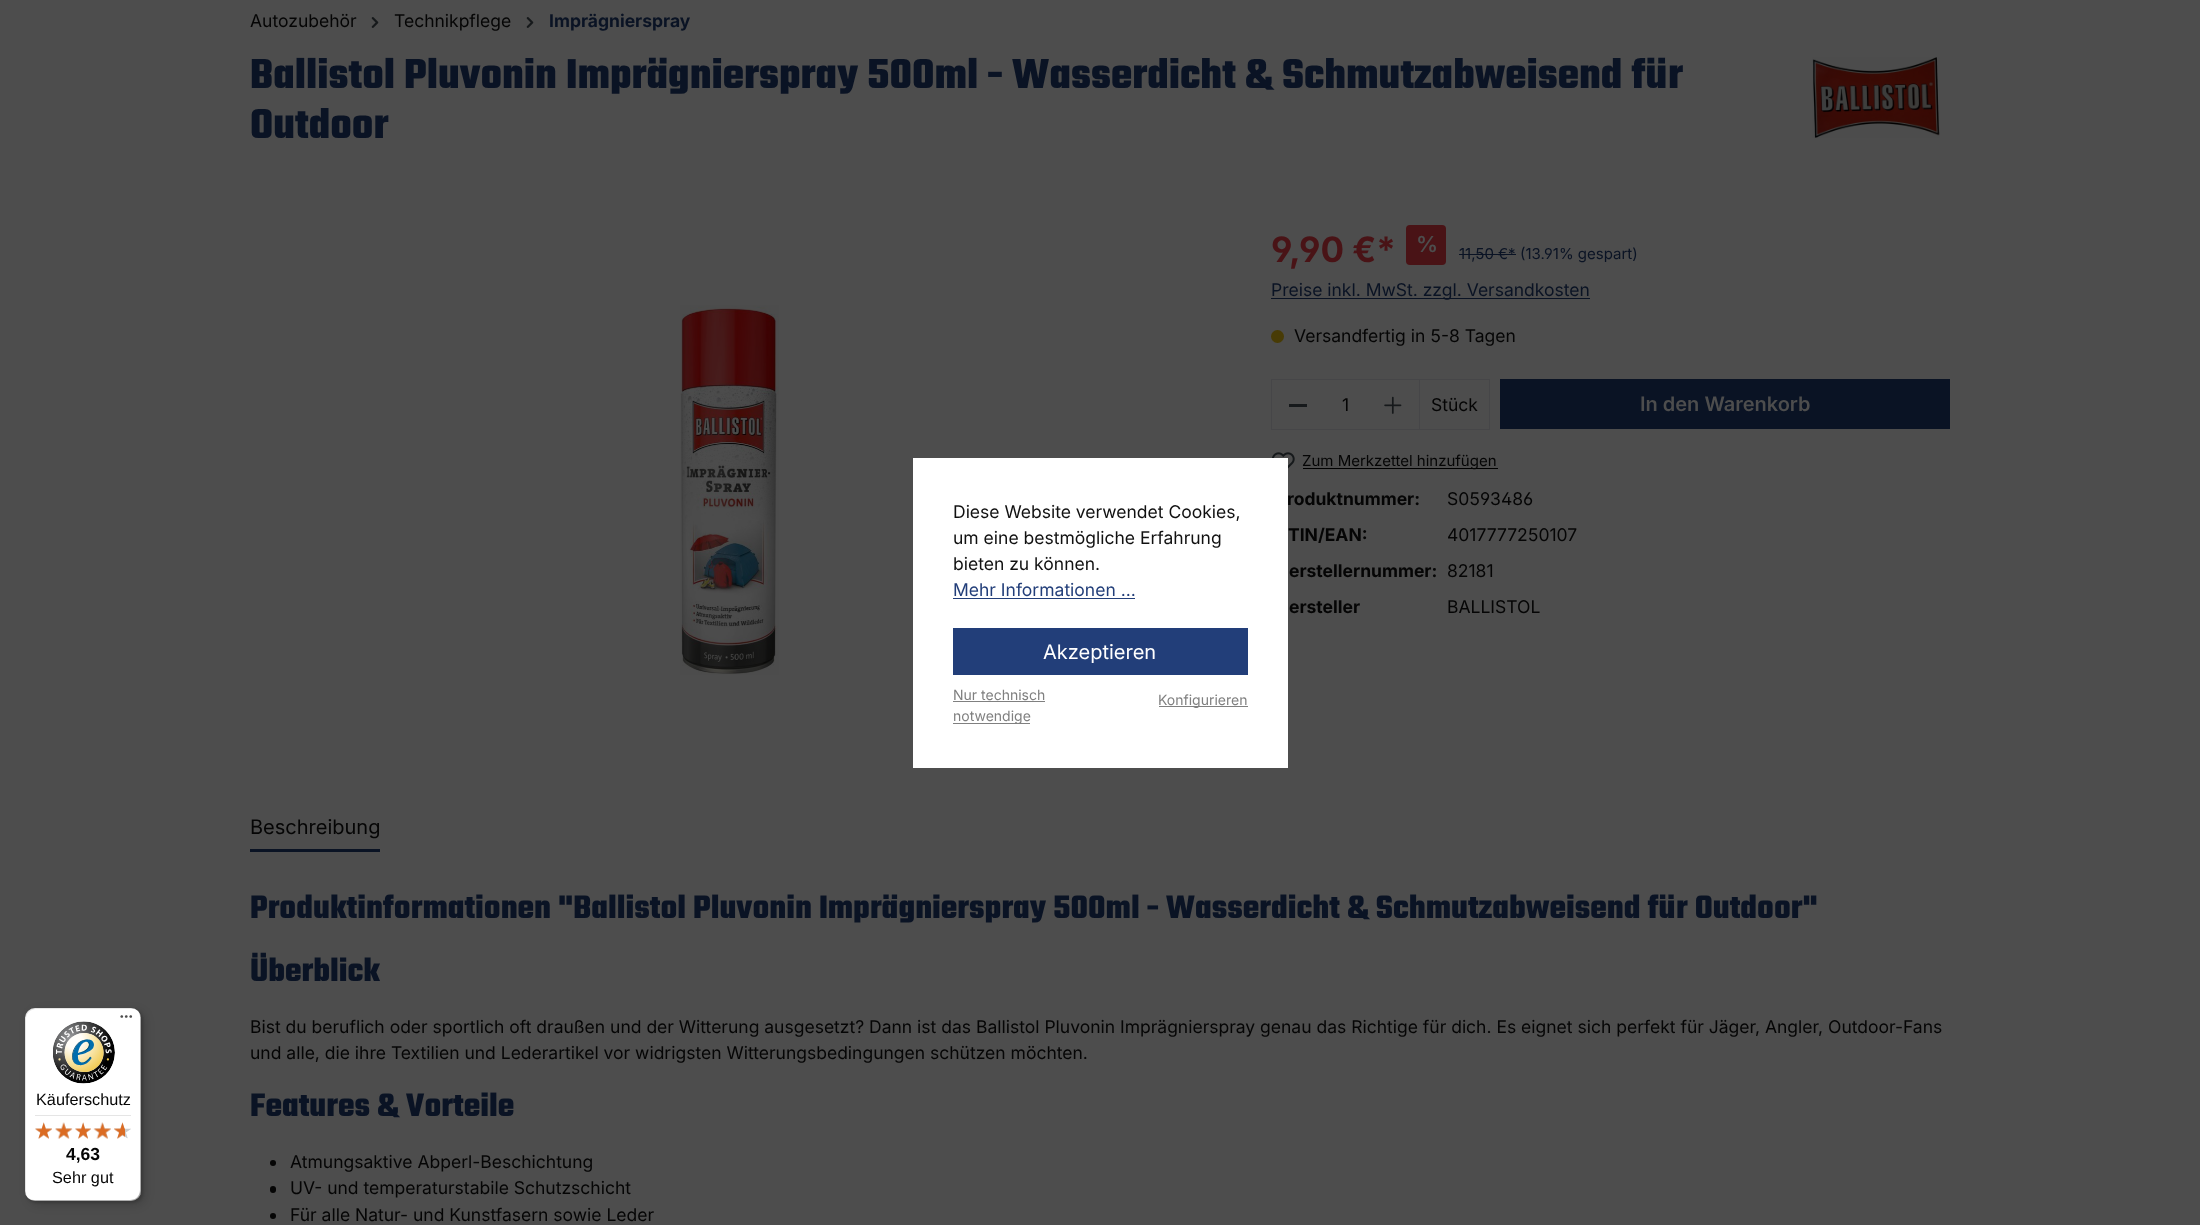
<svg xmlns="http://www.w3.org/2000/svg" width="2200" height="1225">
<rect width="100%" height="100%" fill="#4d4d4d"/>
<text x="250" y="27" style="font-family:Inter;font-size:17.5px;fill:#050505">Autozubehör</text>
<image x="371" y="17" width="8" height="11" href="media/1.png"/>
<text x="394" y="27" style="font-family:Inter;font-size:17.5px;fill:#050505">Technikpflege</text>
<image x="526" y="17" width="8" height="11" href="media/1.png"/>
<text x="549" y="27" style="font-family:Inter;font-size:17.5px;font-weight:bold;fill:#0a1324">Imprägnierspray</text>
<text x="250" y="88" style="font-family:Teko;font-size:45px;font-weight:bold;fill:#0a1324">Ballistol Pluvonin Imprägnierspray 500ml - Wasserdicht &amp; Schmutzabweisend für</text>
<text x="250" y="138" style="font-family:Teko;font-size:45px;font-weight:bold;fill:#0a1324">Outdoor</text>
<image x="1812" y="57" width="128" height="81" href="media/2.png"/>
<image x="680" y="305" width="99" height="370" href="media/3.png"/>
<text x="1271" y="262" style="font-family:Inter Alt;font-size:35px;font-weight:bold;fill:#491316">9,90 €*</text>
<rect x="1406" y="225" width="40" height="40" rx="4" fill="#491316"/>
<text x="1416" y="252" style="font-family:Inter;font-size:22px;font-weight:600;fill:#4d4d4d">%</text>
<text x="1459" y="259" style="font-family:Inter;font-size:15px;fill:#0a1324">11,50 €*</text>
<rect x="1459" y="254" width="57" height="1" fill="#0a1324"/>
<text x="1520" y="259" style="font-family:Inter Alt;font-size:15px;fill:#0a1324">(13.91% gespart)</text>
<rect x="1271" y="298" width="319" height="1" fill="#0a1324"/>
<text x="1271" y="296" style="font-family:Inter;font-size:17.5px;fill:#0a1324">Preise inkl. MwSt. zzgl. Versandkosten</text>
<circle cx="1277.5" cy="336.5" r="6.5" fill="#483b05"/>
<text x="1294" y="342" style="font-family:Inter;font-size:17.5px;fill:#050505">Versandfertig in 5-8 Tagen</text>
<rect x="1419.5" y="379.5" width="70" height="50" fill="none" stroke="#464648"/>
<rect x="1271" y="379" width="149" height="1" fill="#464648"/>
<rect x="1271" y="429" width="149" height="1" fill="#464648"/>
<rect x="1271" y="379" width="1" height="51" fill="#464648"/>
<rect x="1289" y="404" width="18" height="3" fill="#16191b"/>
<text x="1342" y="411" style="font-family:Inter;font-size:17.5px;fill:#050505">1</text>
<image x="1384" y="396" width="18" height="18" href="media/4.png"/>
<text x="1431" y="411" style="font-family:Inter;font-size:17.5px;fill:#050505">Stück</text>
<rect x="1500" y="379" width="450" height="50" fill="#0a1324"/>
<text x="1640" y="411" style="font-family:Inter;font-size:20px;font-weight:600;fill:#4d4d4d">In den Warenkorb</text>
<image x="1272" y="452" width="23" height="17" href="media/5.png"/>
<rect x="1303" y="468" width="195" height="1" fill="#000"/>
<text x="1302" y="466" style="font-family:Inter;font-size:15px;fill:#050505">Zum Merkzettel hinzufügen</text>
<text x="1287" y="505" style="font-family:Inter;font-size:17.5px;font-weight:bold;fill:#050505">roduktnummer:</text>
<text x="1447" y="505" style="font-family:Inter Alt;font-size:17.5px;fill:#050505">S0593486</text>
<text x="1288" y="541" style="font-family:Inter;font-size:17.5px;font-weight:bold;fill:#050505">TIN/EAN:</text>
<text x="1447" y="541" style="font-family:Inter;font-size:17.5px;fill:#050505">4017777250107</text>
<text x="1289" y="577" style="font-family:Inter;font-size:17.5px;font-weight:bold;fill:#050505">erstellernummer:</text>
<text x="1447" y="577" style="font-family:Inter;font-size:17.5px;fill:#050505">82181</text>
<text x="1289" y="613" style="font-family:Inter;font-size:17.5px;font-weight:bold;fill:#050505">ersteller</text>
<text x="1447" y="613" style="font-family:Inter;font-size:17.5px;fill:#050505">BALLISTOL</text>
<rect x="250" y="849" width="130" height="3" fill="#0a1324"/>
<text x="250" y="834" style="font-family:Inter;font-size:20px;fill:#050505">Beschreibung</text>
<text x="250" y="918" style="font-family:Teko;font-size:35px;font-weight:bold;fill:#0a1324">Produktinformationen "Ballistol Pluvonin Imprägnierspray 500ml - Wasserdicht &amp; Schmutzabweisend für Outdoor"</text>
<text x="250" y="981" style="font-family:Teko;font-size:35px;font-weight:bold;fill:#0a1324">Überblick</text>
<text x="250" y="1033" style="font-family:Inter;font-size:17.5px;fill:#050505">Bist du beruflich oder sportlich oft draußen und der Witterung ausgesetzt? Dann ist das Ballistol Pluvonin Imprägnierspray genau das Richtige für dich. Es eignet sich perfekt für Jäger, Angler, Outdoor-Fans</text>
<text x="250" y="1059" style="font-family:Inter;font-size:17.5px;fill:#050505">und alle, die ihre Textilien und Lederartikel vor widrigsten Witterungsbedingungen schützen möchten.</text>
<text x="250" y="1116" style="font-family:Teko;font-size:35px;font-weight:bold;fill:#0a1324">Features &amp; Vorteile</text>
<circle cx="273" cy="1163" r="3" fill="#050505"/>
<text x="290" y="1168" style="font-family:Inter;font-size:17.5px;fill:#050505">Atmungsaktive Abperl-Beschichtung</text>
<rect x="270" y="1186" width="6" height="7" rx="3" fill="#050505"/>
<text x="290" y="1194" style="font-family:Inter;font-size:17.5px;fill:#050505">UV- und temperaturstabile Schutzschicht</text>
<circle cx="273" cy="1216" r="3" fill="#050505"/>
<text x="290" y="1221" style="font-family:Inter;font-size:17.5px;fill:#050505">Für alle Natur- und Kunstfasern sowie Leder</text>
<rect x="913" y="458" width="375" height="310" fill="#fff"/>
<text x="953" y="518" style="font-family:Inter;font-size:17.5px;fill:#111">Diese Website verwendet Cookies,</text>
<text x="953" y="544" style="font-family:Inter;font-size:17.5px;fill:#111">um eine bestmögliche Erfahrung</text>
<text x="953" y="570" style="font-family:Inter;font-size:17.5px;fill:#111">bieten zu können.</text>
<text x="953" y="596" style="font-family:Inter;font-size:17.5px;fill:#223e79">Mehr Informationen ...</text>
<rect x="953" y="598" width="182" height="1" fill="#223e79"/>
<rect x="953" y="628" width="295" height="47" fill="#223e79"/>
<text x="1043" y="659" style="font-family:Inter;font-size:20px;fill:#fff">Akzeptieren</text>
<text x="953" y="700" style="font-family:Inter;font-size:14px;fill:#808080">Nur technisch</text>
<rect x="953" y="701" width="92" height="1" fill="#808080"/>
<rect x="953" y="723" width="77" height="1" fill="#808080"/>
<text x="953" y="721" style="font-family:Inter;font-size:14px;fill:#808080">notwendige</text>
<rect x="1159" y="706" width="89" height="1" fill="#808080"/>
<text x="1158" y="705" style="font-family:Inter;font-size:14px;fill:#808080">Konfigurieren</text>
<rect x="29" y="1011" width="116" height="194" rx="10" fill="#00000026" filter="blur(5px)"/>
<rect x="26" y="1009" width="117" height="194" rx="10" fill="#00000026" filter="blur(1px)"/>
<rect x="25" y="1008" width="116" height="193" rx="10" fill="#fff"/>
<path d="M36 1009h96c2 0 4 0 5 1c-1-1-4-2-6-2h-96c-6 0-10 4-10 10v173c0 3 1 6 3 8c-1-2-2-4-2-7v-173c0-6 5-10 10-10z" fill="#0000001a"/>
<path d="M29 1199c1 1 4 2 6 2h96c6 0 10-4 10-10v-173c0-2-1-4-2-6l1 4v174c0 6-4 10-10 10h-96c-2 0-4 0-5-1z" fill="#00000033"/>
<path d="M27 1197c2 3 5 4 8 4h96c6 0 10-4 10-10v-173c0-2-1-5-2-6c1 1 1 3 1 5v173c0 6-4 10-10 10h-96c-2 0-5-1-7-3z" fill="#32323233"/>
<image x="120" y="1015" width="13" height="3" href="media/6.png"/>
<path d="M131 1201c5.5 0 10-4.5 10-10c0 5-5 10-10 10z" fill="#ffffff4d"/>
<image x="53" y="1021" width="62" height="63" href="media/7.png"/>
<text x="36" y="1105" style="font-family:Liberation Sans;font-size:16.25px;fill:#050505">Käuferschutz</text>
<rect x="35" y="1115" width="96" height="1" fill="#e5e5e5"/>
<image x="35" y="1123" width="17" height="16" href="media/8.png"/>
<image x="55" y="1122" width="17" height="17" href="media/9.png"/>
<image x="75" y="1123" width="16" height="16" href="media/10.png"/>
<image x="94" y="1122" width="17" height="17" href="media/11.png"/>
<image x="114" y="1123" width="17" height="16" href="media/12.png"/>
<image x="35" y="1122" width="17" height="17" href="media/13.png"/>
<image x="55" y="1122" width="18" height="17" href="media/14.png"/>
<image x="75" y="1122" width="16" height="17" href="media/15.png"/>
<image x="93" y="1122" width="18" height="17" href="media/16.png"/>
<image x="114" y="1122" width="11" height="17" href="media/17.png"/>
<text x="66" y="1160" style="font-family:Liberation Sans;font-size:17.5px;font-weight:bold;fill:#050505">4,63</text>
<text x="52" y="1183" style="font-family:Liberation Sans;font-size:16.25px;fill:#050505">Sehr gut</text>
</svg>
